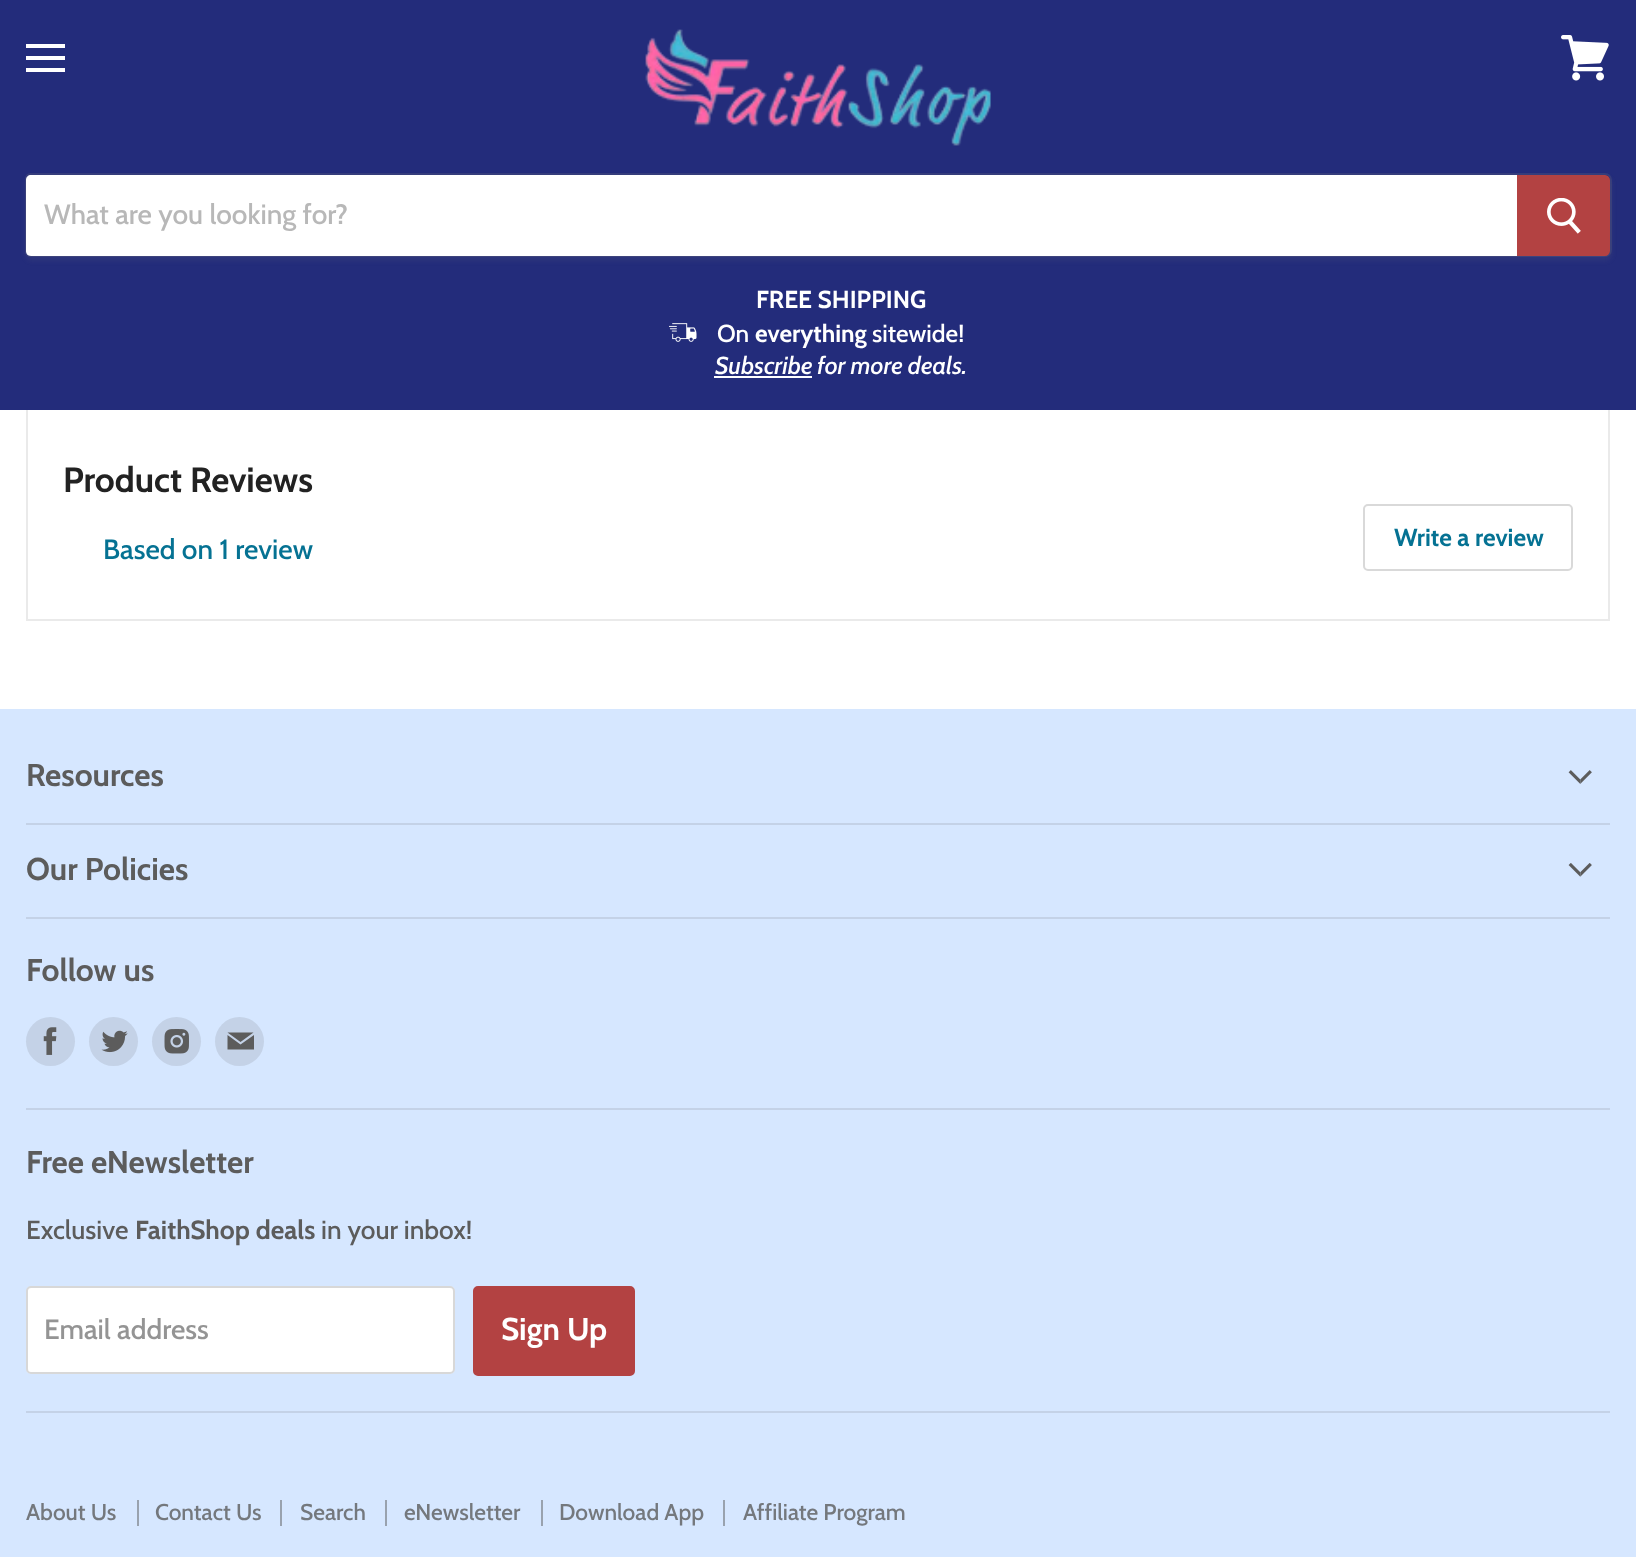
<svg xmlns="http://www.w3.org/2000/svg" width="1636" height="1557">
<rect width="100%" height="100%" fill="#fff"/>
<rect x="27" y="383" width="1582" height="237" fill="none" stroke="#eaeaea" stroke-width="2"/>
<rect width="1636" height="410" fill="#232c7b"/>
<rect x="26" y="44" width="39" height="4" fill="#fff"/>
<rect x="26" y="56" width="39" height="4" fill="#fff"/>
<rect x="26" y="68" width="39" height="4" fill="#fff"/>
<image x="1561" y="35" width="48" height="46" href="media/1.png"/>
<image x="645" y="29" width="346" height="117" href="media/2.png"/>
<rect x="25" y="177" width="1587" height="84" rx="7" fill="#7f7f7f1c" filter="blur(2.5px)"/>
<path d="M30 174h1575c3.5 0 6 2.5 6 6v70c0 3.5-2.5 6-6 6h-1575c-2 0-4-2-4-4v-74c0-2 2-4 4-4z" fill="none" stroke="#7f7f7f33" stroke-width="2"/>
<path d="M31 175h1486v81h-1486c-3 0-5-2-5-5v-71c0-3 2-5 5-5z" fill="#fff"/>
<text x="44" y="224" style="font-family:Cabin;font-size:28px;font-weight:500;fill:#b8b8b8">What are you looking for?</text>
<path d="M1518 176h87c2 0 4 2 4 4v71c0 2-2 4-4 4h-87z" fill="#b34242" stroke="#b34242" stroke-width="2"/>
<image x="1547" y="198" width="34" height="36" href="media/3.png"/>
<image x="669" y="323" width="28" height="19" href="media/4.png"/>
<text x="756" y="308" style="font-family:Cabin;font-size:24.5px;font-weight:bold;fill:#fff">FREE SHIPPING</text>
<text x="717" y="342" style="font-family:Cabin;font-size:24.5px;font-weight:500;fill:#fff">On</text>
<text x="755" y="342" style="font-family:Cabin;font-size:24.5px;font-weight:bold;fill:#fff">everything</text>
<text x="872" y="342" style="font-family:Cabin;font-size:24.5px;font-weight:500;fill:#fff">sitewide!</text>
<text x="715" y="374" style="font-family:Cabin;font-size:24.5px;font-weight:500;font-style:italic;fill:#fff">Subscribe</text>
<rect x="714" y="376" width="98" height="2" fill="#fff"/>
<text x="817" y="374" style="font-family:Cabin;font-size:24.5px;font-weight:500;font-style:italic;fill:#fff">for more deals.</text>
<text x="63" y="492" style="font-family:Cabin;font-size:35px;font-weight:bold;fill:#222">Product Reviews</text>
<text x="103" y="559" style="font-family:Cabin;font-size:28px;font-weight:500;fill:#057293">Based on 1 review</text>
<rect x="1364" y="505" width="208" height="65" rx="4" fill="none" stroke="#d9d9d9" stroke-width="2"/>
<text x="1394" y="546" style="font-family:Cabin;font-size:24.5px;font-weight:bold;fill:#057293">Write a review</text>
<rect y="709" width="1636" height="848" fill="#d6e7ff"/>
<rect x="26" y="823" width="1584" height="2" fill="#c4d2e7"/>
<text x="26" y="786" style="font-family:Cabin;font-size:31.5px;font-weight:bold;fill:#5c5c5c">Resources</text>
<image x="1568" y="770" width="24" height="14" href="media/5.png"/>
<rect x="26" y="917" width="1584" height="2" fill="#c4d2e7"/>
<text x="26" y="880" style="font-family:Cabin;font-size:31.5px;font-weight:bold;fill:#5c5c5c">Our Policies</text>
<image x="1568" y="863" width="24" height="14" href="media/6.png"/>
<rect x="26" y="1108" width="1584" height="2" fill="#c4d2e7"/>
<text x="26" y="981" style="font-family:Cabin;font-size:31.5px;font-weight:bold;fill:#5c5c5c">Follow us</text>
<circle cx="50.5" cy="1041.5" r="24.5" fill="#c4d2e7"/>
<image x="43" y="1027" width="14" height="28" href="media/7.png"/>
<circle cx="113.5" cy="1041.5" r="24.5" fill="#c4d2e7"/>
<image x="101" y="1030" width="27" height="23" href="media/8.png"/>
<circle cx="176.5" cy="1041.5" r="24.5" fill="#c4d2e7"/>
<image x="164" y="1029" width="25" height="25" href="media/9.png"/>
<circle cx="239.5" cy="1041.5" r="24.5" fill="#c4d2e7"/>
<path d="M253.5 1032.5h-26l13 9.5zm-13 12l-13-9.5v14.5h26.5v-14.5z" fill="#5c5c5c" fill-rule="evenodd"/>
<rect x="26" y="1411" width="1584" height="2" fill="#c4d2e7"/>
<text x="26" y="1173" style="font-family:Cabin;font-size:31.5px;font-weight:bold;fill:#5c5c5c">Free eNewsletter</text>
<text x="26" y="1239" style="font-family:Cabin;font-size:26.25px;font-weight:500;fill:#5c5c5c">Exclusive</text>
<text x="135" y="1239" style="font-family:Cabin;font-size:26.25px;font-weight:bold;fill:#5c5c5c">FaithShop deals</text>
<text x="321" y="1239" style="font-family:Cabin;font-size:26.25px;font-weight:500;fill:#5c5c5c">in your inbox!</text>
<rect x="26" y="1286" width="429" height="88" rx="5" fill="#fff"/>
<rect x="27" y="1287" width="427" height="86" rx="4" fill="none" stroke="#7f7f7f4d" stroke-width="2"/>
<text x="44" y="1339" style="font-family:Cabin;font-size:28px;font-weight:500;fill:#949494">Email address</text>
<rect x="474" y="1287" width="160" height="88" rx="4" fill="#b34242" stroke="#b34242" stroke-width="2"/>
<text x="501" y="1340" style="font-family:Cabin;font-size:31.5px;font-weight:bold;fill:#fff">Sign Up</text>
<rect x="137" y="1500" width="2" height="26" fill="#99a2ae"/>
<text x="26" y="1520" style="font-family:Cabin;font-size:22.75px;font-weight:500;fill:#74787d">About Us</text>
<rect x="280" y="1500" width="2" height="26" fill="#99a2ae"/>
<text x="155" y="1520" style="font-family:Cabin;font-size:22.75px;font-weight:500;fill:#74787d">Contact Us</text>
<rect x="385" y="1500" width="2" height="26" fill="#99a2ae"/>
<text x="300" y="1520" style="font-family:Cabin;font-size:22.75px;font-weight:500;fill:#74787d">Search</text>
<rect x="541" y="1500" width="2" height="26" fill="#99a2ae"/>
<text x="404" y="1520" style="font-family:Cabin;font-size:22.75px;font-weight:500;fill:#74787d">eNewsletter</text>
<rect x="723" y="1500" width="2" height="26" fill="#99a2ae"/>
<text x="559" y="1520" style="font-family:Cabin;font-size:22.75px;font-weight:500;fill:#74787d">Download App</text>
<text x="743" y="1520" style="font-family:Cabin;font-size:22.75px;font-weight:500;fill:#74787d">Affiliate Program</text>
</svg>
